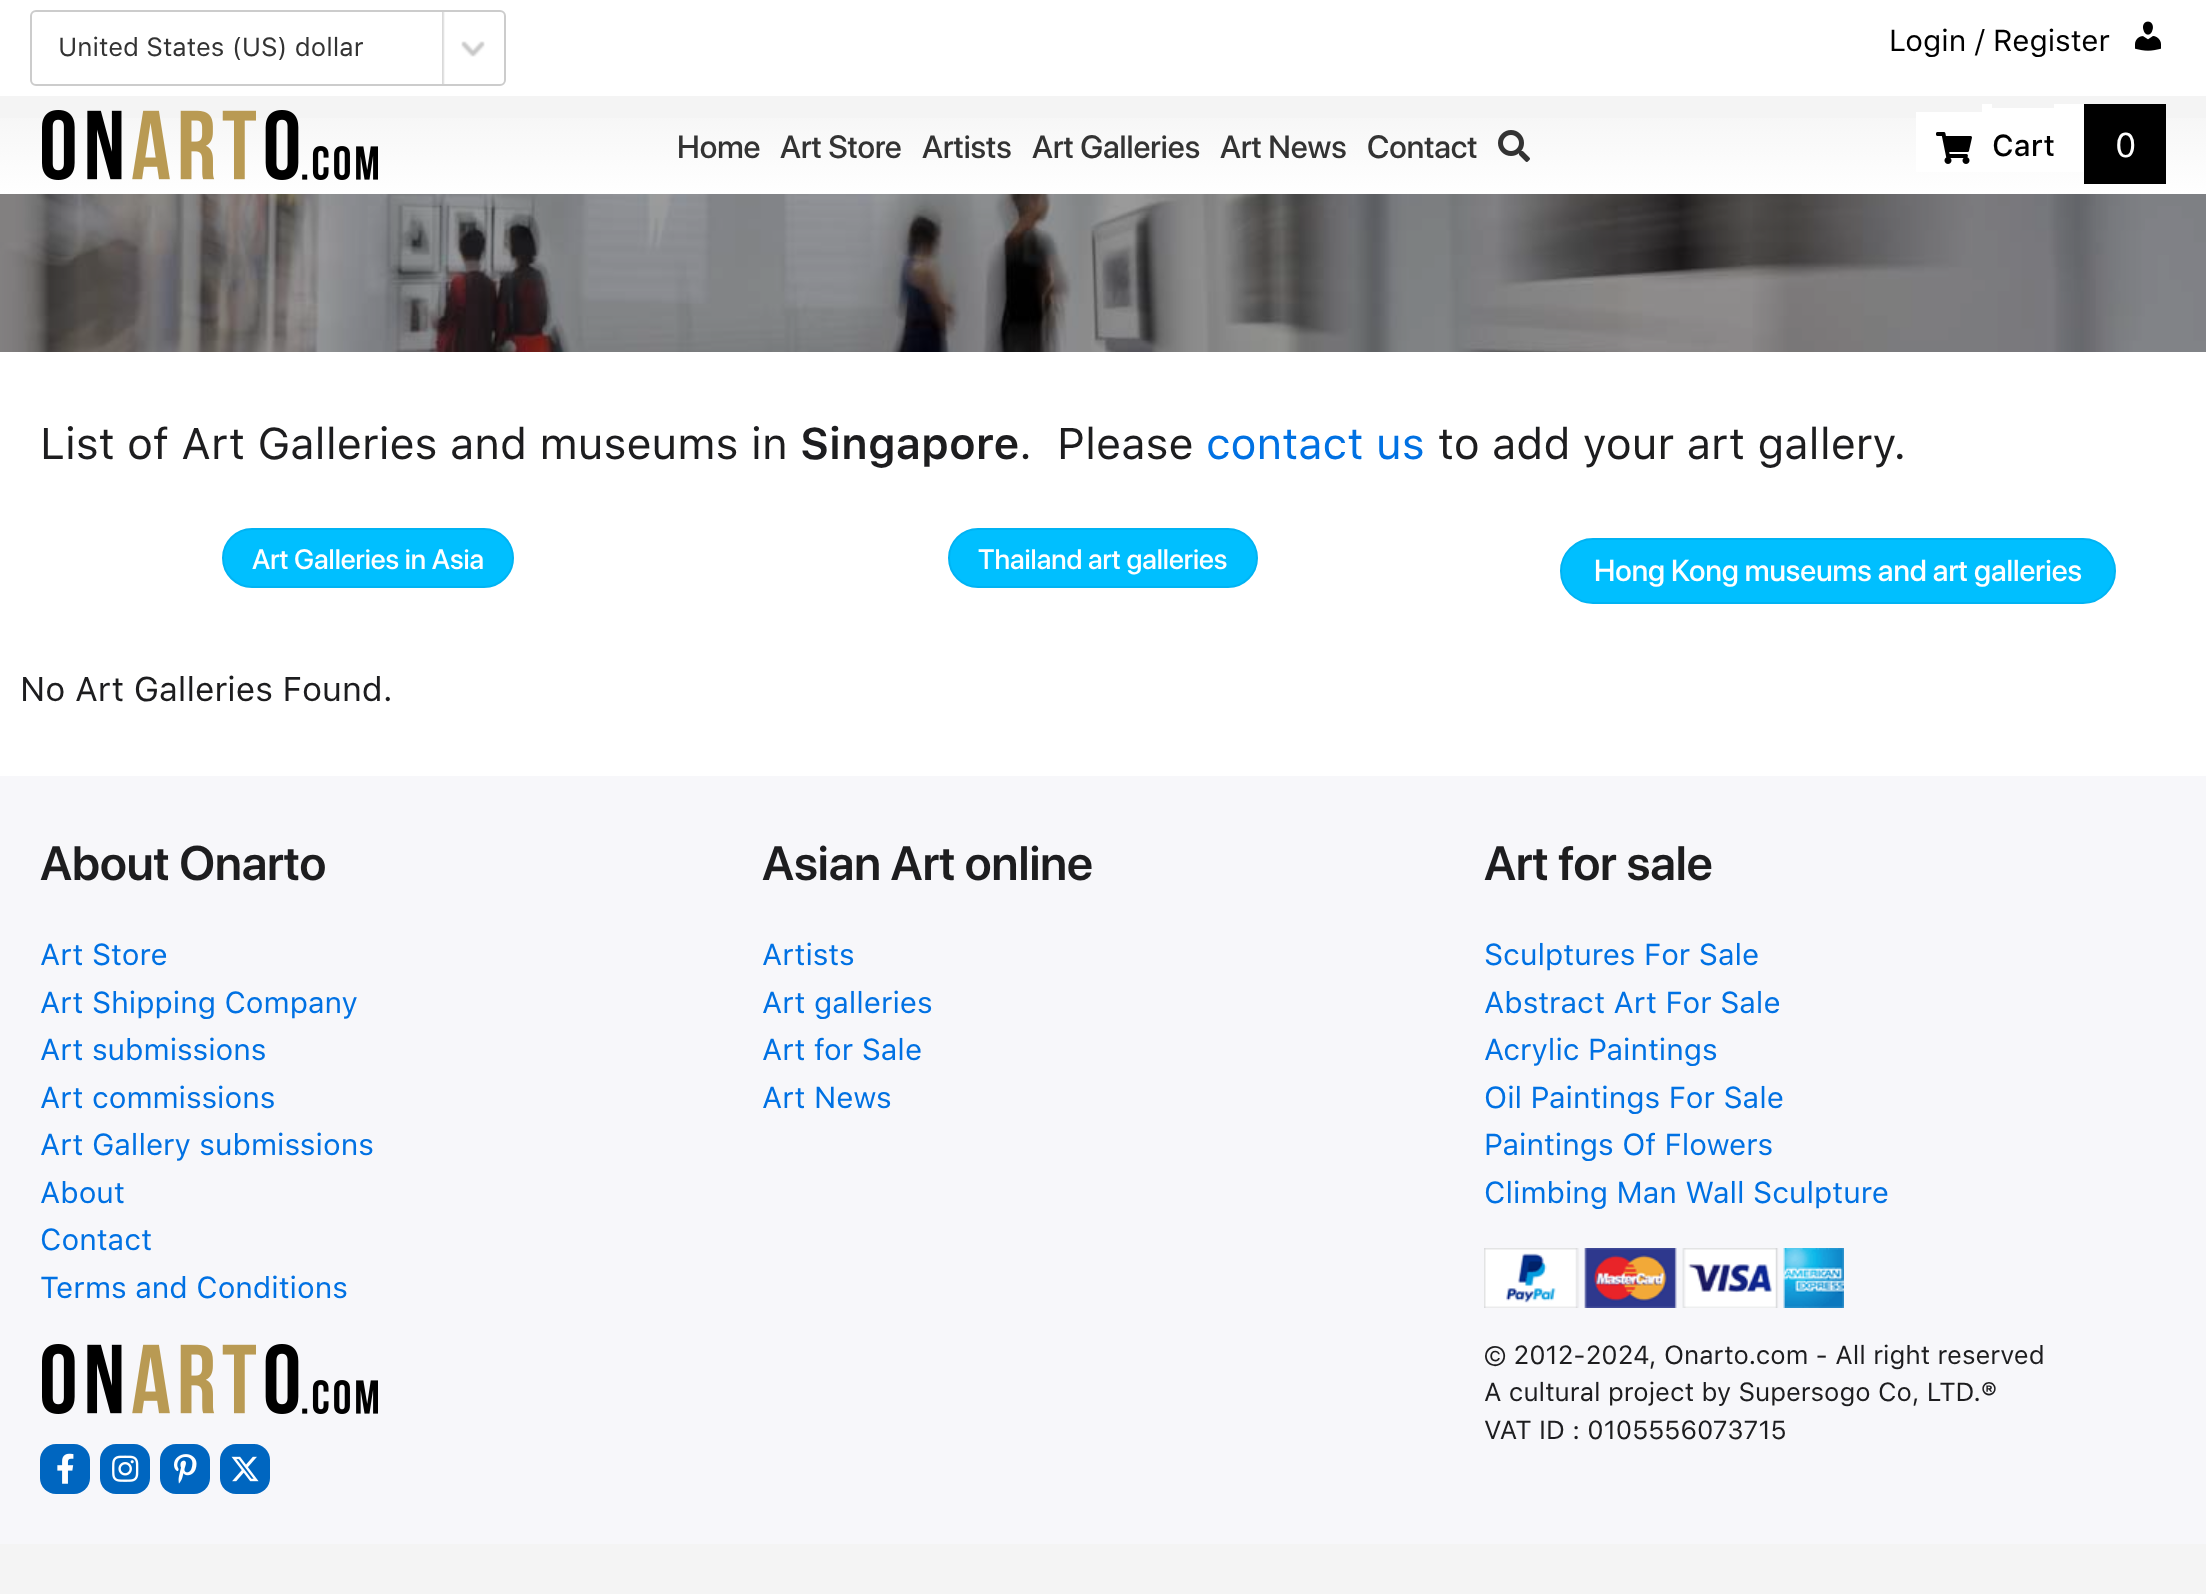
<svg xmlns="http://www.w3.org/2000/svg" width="2206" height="1594">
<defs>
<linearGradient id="g1" gradientUnits="userSpaceOnUse" x1="1103" y1="96" x2="1103" y2="194"><stop offset="0" stop-color="#f4f4f4"/><stop offset="1" stop-color="#fff"/></linearGradient>
</defs>
<rect width="100%" height="100%" fill="#f4f4f4"/>
<rect width="2206" height="96" fill="#fff"/>
<image x="442" y="12" width="43" height="72" href="media/1.png"/>
<rect x="31" y="11" width="474" height="74" rx="5" fill="none" stroke="#ccc" stroke-width="2"/>
<text x="58" y="56" style="font-family:SF Pro Text;font-size:26px;fill:#333">United States (US) dollar</text>
<text x="1889" y="51" style="font-family:SF Pro Text;font-size:30px;fill:#000">Login / Register</text>
<image x="2135" y="21" width="26" height="30" href="media/2.png"/>
<rect y="118" width="2206" height="76" fill="url(#g1)"/>
<image x="42" y="110" width="336" height="70" href="media/3.png"/>
<text x="677" y="158" style="font-family:SF Pro Display;font-size:32px;font-weight:500;fill:#333">Home</text>
<text x="780" y="158" style="font-family:SF Pro Display;font-size:32px;font-weight:500;fill:#333">Art Store</text>
<text x="922" y="158" style="font-family:SF Pro Display;font-size:32px;font-weight:500;fill:#333">Artists</text>
<text x="1032" y="158" style="font-family:SF Pro Display;font-size:32px;font-weight:500;fill:#333">Art Galleries</text>
<text x="1220" y="158" style="font-family:SF Pro Display;font-size:32px;font-weight:500;fill:#333">Art News</text>
<text x="1367" y="158" style="font-family:SF Pro Display;font-size:32px;font-weight:500;fill:#333">Contact</text>
<image x="1498" y="130" width="32" height="32" href="media/4.png"/>
<rect x="1916" y="112" width="66" height="60" fill="#fff"/>
<rect x="1982" y="104" width="10" height="68" fill="#fff"/>
<rect x="1992" y="108" width="62" height="64" fill="#fff"/>
<rect x="2054" y="104" width="30" height="68" fill="#fff"/>
<image x="1936" y="132" width="36" height="32" href="media/5.png"/>
<text x="1992" y="156" style="font-family:SF Pro Text;font-size:30px;font-weight:500;fill:#000">Cart</text>
<rect x="2084" y="104" width="82" height="80" fill="#000"/>
<text x="2115" y="157" style="font-family:SF Pro Text;font-size:34px;fill:#fff">0</text>
<rect y="352" width="2206" height="424" fill="#fff"/>
<image x="0" y="194" width="2206" height="158" href="media/6.png"/>
<text x="40" y="459" style="font-family:SF Pro Text;font-size:44px;fill:#1d1d1f">List of Art Galleries and museums in</text>
<text x="800" y="459" style="font-family:SF Pro Text;font-size:44px;font-weight:600;fill:#1d1d1f">Singapore</text>
<text x="1019" y="459" style="font-family:SF Pro Text;font-size:44px;fill:#1d1d1f">.</text>
<text x="1057" y="459" style="font-family:SF Pro Text;font-size:44px;fill:#1d1d1f">Please</text>
<text x="1206" y="459" style="font-family:SF Pro Text;font-size:44px;fill:#0071e3">contact us</text>
<text x="1438" y="459" style="font-family:SF Pro Text;font-size:44px;fill:#1d1d1f">to add your art gallery.</text>
<rect x="223" y="529" width="290" height="58" rx="29" fill="#00bfff" stroke="#00b3f3" stroke-width="2"/>
<text x="252" y="569" style="font-family:SF Pro Display;font-size:28px;font-weight:500;fill:#fff">Art Galleries in Asia</text>
<rect x="949" y="529" width="308" height="58" rx="29" fill="#00bfff" stroke="#00b3f3" stroke-width="2"/>
<text x="978" y="569" style="font-family:SF Pro Display;font-size:28px;font-weight:500;fill:#fff">Thailand art galleries</text>
<rect x="1561" y="539" width="554" height="64" rx="32" fill="#00bfff" stroke="#00b3f3" stroke-width="2"/>
<text x="1594" y="581" style="font-family:SF Pro Display;font-size:30px;font-weight:500;fill:#fff">Hong Kong museums and art galleries</text>
<text x="20" y="701" style="font-family:SF Pro Text;font-size:34px;fill:#1d1d1f">No Art Galleries Found.</text>
<rect y="776" width="2206" height="768" fill="#f7f7fa"/>
<text x="40" y="880" style="font-family:SF Pro Display;font-size:48px;font-weight:600;fill:#1d1d1f">About Onarto</text>
<text x="40" y="965" style="font-family:SF Pro Text;font-size:30px;fill:#0071e3">Art Store</text>
<text x="40" y="1013" style="font-family:SF Pro Text;font-size:30px;fill:#0071e3">Art Shipping Company</text>
<text x="40" y="1060" style="font-family:SF Pro Text;font-size:30px;fill:#0071e3">Art submissions</text>
<text x="40" y="1108" style="font-family:SF Pro Text;font-size:30px;fill:#0071e3">Art commissions</text>
<text x="40" y="1155" style="font-family:SF Pro Text;font-size:30px;fill:#0071e3">Art Gallery submissions</text>
<text x="40" y="1203" style="font-family:SF Pro Text;font-size:30px;fill:#0071e3">About</text>
<text x="40" y="1250" style="font-family:SF Pro Text;font-size:30px;fill:#0071e3">Contact</text>
<text x="40" y="1298" style="font-family:SF Pro Text;font-size:30px;fill:#0071e3">Terms and Conditions</text>
<image x="42" y="1344" width="336" height="70" href="media/7.png"/>
<rect x="40" y="1444" width="50" height="50" rx="16" fill="#0066c0"/>
<image x="57" y="1453" width="17" height="31" href="media/8.png"/>
<rect x="100" y="1444" width="50" height="50" rx="16" fill="#0066c0"/>
<image x="112" y="1455" width="27" height="27" href="media/9.png"/>
<rect x="160" y="1444" width="50" height="50" rx="16" fill="#0066c0"/>
<image x="174" y="1454" width="23" height="30" href="media/10.png"/>
<rect x="220" y="1444" width="50" height="50" rx="16" fill="#0066c0"/>
<image x="231" y="1456" width="28" height="26" href="media/11.png"/>
<text x="762" y="880" style="font-family:SF Pro Display;font-size:48px;font-weight:600;fill:#1d1d1f">Asian Art online</text>
<text x="762" y="965" style="font-family:SF Pro Text;font-size:30px;fill:#0071e3">Artists</text>
<text x="762" y="1013" style="font-family:SF Pro Text;font-size:30px;fill:#0071e3">Art galleries</text>
<text x="762" y="1060" style="font-family:SF Pro Text;font-size:30px;fill:#0071e3">Art for Sale</text>
<text x="762" y="1108" style="font-family:SF Pro Text;font-size:30px;fill:#0071e3">Art News</text>
<text x="1484" y="880" style="font-family:SF Pro Display;font-size:48px;font-weight:600;fill:#1d1d1f">Art for sale</text>
<text x="1484" y="965" style="font-family:SF Pro Text;font-size:30px;fill:#0071e3">Sculptures For Sale</text>
<text x="1484" y="1013" style="font-family:SF Pro Text;font-size:30px;fill:#0071e3">Abstract Art For Sale</text>
<text x="1484" y="1060" style="font-family:SF Pro Text;font-size:30px;fill:#0071e3">Acrylic Paintings</text>
<text x="1484" y="1108" style="font-family:SF Pro Text;font-size:30px;fill:#0071e3">Oil Paintings For Sale</text>
<text x="1484" y="1155" style="font-family:SF Pro Text;font-size:30px;fill:#0071e3">Paintings Of Flowers</text>
<text x="1484" y="1203" style="font-family:SF Pro Text;font-size:30px;fill:#0071e3">Climbing Man Wall Sculpture</text>
<image x="1484" y="1248" width="360" height="60" href="media/12.png"/>
<text x="1484" y="1364" style="font-family:SF Pro Text;font-size:26px;fill:#1d1d1f">© 2012-2024, Onarto.com - All right reserved</text>
<text x="1484" y="1401" style="font-family:SF Pro Text;font-size:26px;fill:#1d1d1f">A cultural project by Supersogo Co, LTD.</text>
<text x="1981" y="1401" style="font-family:SF Pro Text;font-size:26px;font-weight:600;fill:#1d1d1f">®</text>
<text x="1484" y="1439" style="font-family:SF Pro Text;font-size:26px;fill:#1d1d1f">VAT ID : 0105556073715</text>
</svg>
